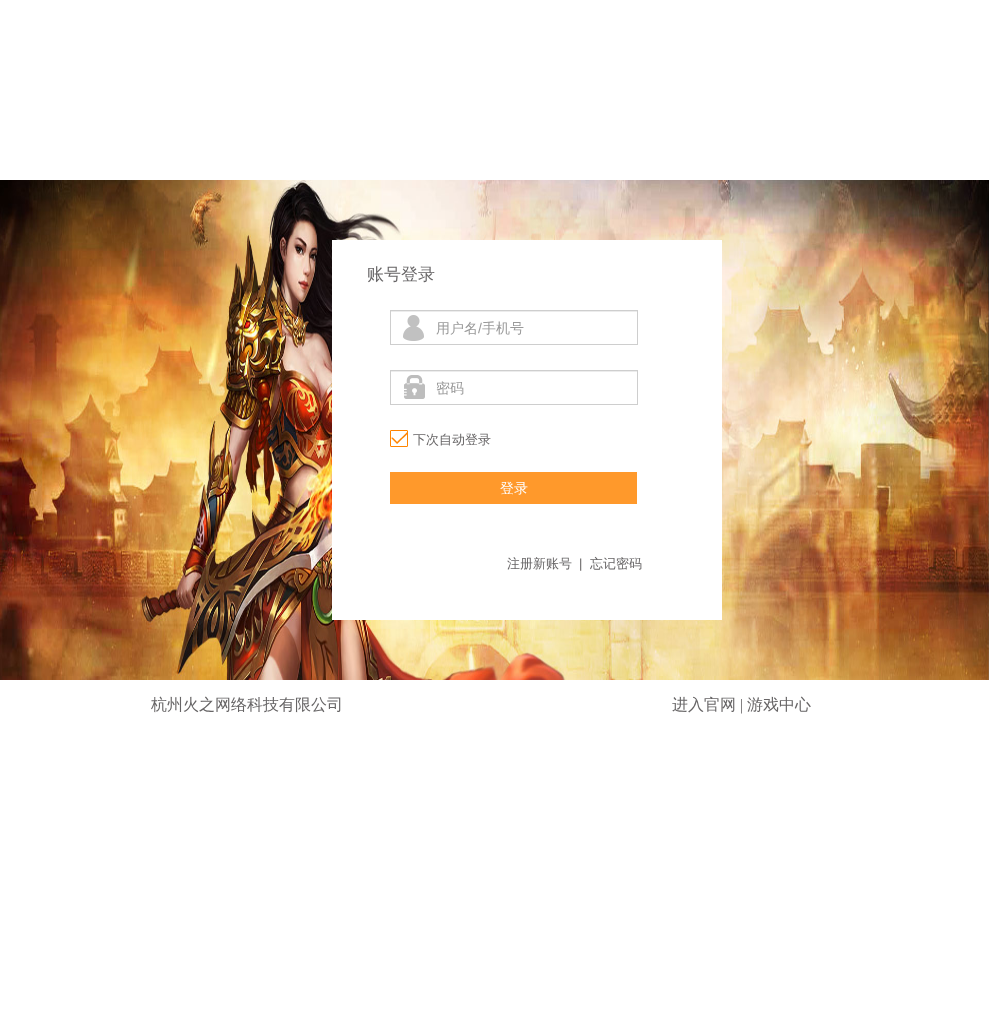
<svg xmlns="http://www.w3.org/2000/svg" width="989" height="1021">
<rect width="100%" height="100%" fill="#fff"/>
<image x="0" y="180" width="989" height="500" href="media/1.png"/>
<rect x="332" y="240" width="390" height="380" fill="#fff"/>
<text x="367" y="280" style="font-family:WenQuanYi Zen Hei;font-size:17px;font-weight:500;fill:#676566">账号登录</text>
<rect x="391" y="311" width="246" height="1" fill="#ececec"/>
<rect x="390.5" y="310.5" width="247" height="34" fill="none" stroke="#cecece"/>
<image x="403" y="315" width="21" height="26" href="media/2.png"/>
<text x="436" y="333" style="font-family:WenQuanYi Zen Hei;font-size:14px;font-weight:500;fill:#999">用户名</text>
<text x="478" y="333" style="font-family:Liberation Sans;font-size:14px;fill:#999">/</text>
<text x="482" y="333" style="font-family:WenQuanYi Zen Hei;font-size:14px;font-weight:500;fill:#999">手机号</text>
<rect x="391" y="371" width="246" height="1" fill="#ececec"/>
<rect x="390.5" y="370.5" width="247" height="34" fill="none" stroke="#cecece"/>
<image x="404" y="375" width="21" height="24" href="media/3.png"/>
<text x="436" y="393" style="font-family:WenQuanYi Zen Hei;font-size:14px;font-weight:500;fill:#999">密码</text>
<image x="390" y="430" width="18" height="17" href="media/4.png"/>
<text x="413" y="444" style="font-family:WenQuanYi Zen Hei;font-size:13px;font-weight:500;fill:#676566">下次自动登录</text>
<rect x="390" y="472" width="247" height="32" fill="#ff992b"/>
<text x="500" y="493" style="font-family:WenQuanYi Zen Hei;font-size:14px;font-weight:500;fill:#fff">登录</text>
<text x="507" y="568" style="font-family:WenQuanYi Zen Hei;font-size:13px;font-weight:500;fill:#676566">注册新账号</text>
<text x="579" y="568" style="font-family:Liberation Sans;font-size:13px;fill:#676566">|</text>
<text x="590" y="568" style="font-family:WenQuanYi Zen Hei;font-size:13px;font-weight:500;fill:#676566">忘记密码</text>
<text x="151" y="710" style="font-family:WenQuanYi Zen Hei;font-size:16px;font-weight:500;fill:#676566">杭州火之网络科技有限公司</text>
<text x="672" y="710" style="font-family:WenQuanYi Zen Hei;font-size:16px;font-weight:500;fill:#676566">进入官网</text>
<text x="740" y="710" style="font-family:Liberation Serif;font-size:16px;fill:#676566">|</text>
<text x="747" y="710" style="font-family:WenQuanYi Zen Hei;font-size:16px;font-weight:500;fill:#676566">游戏中心</text>
</svg>
